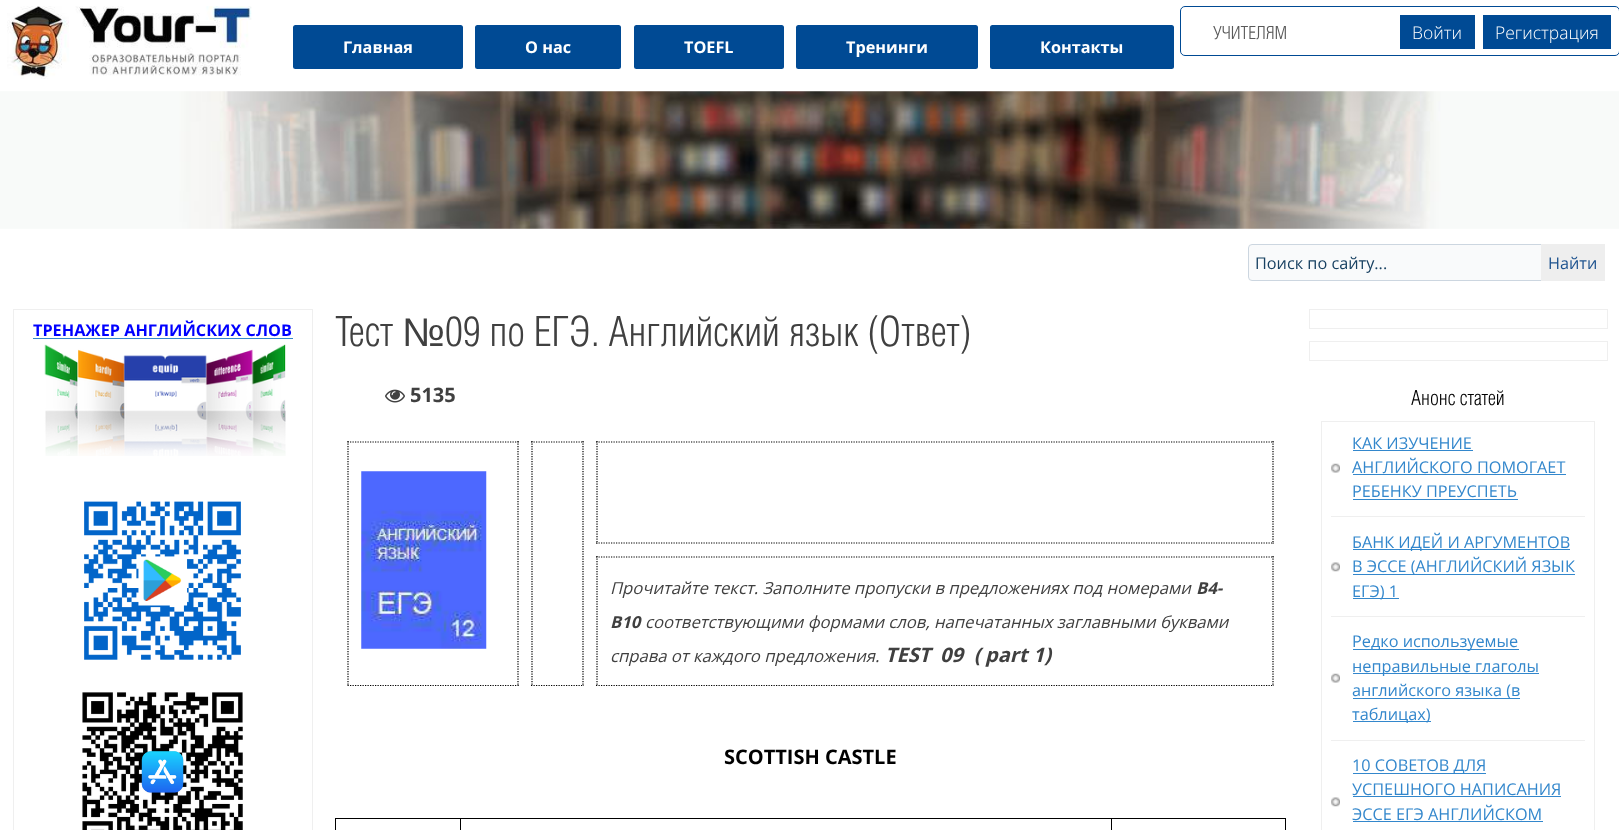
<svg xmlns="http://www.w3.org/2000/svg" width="1619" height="830">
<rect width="100%" height="100%" fill="#fff"/>
<image x="7" y="6" width="245" height="73" href="media/1.png"/>
<rect x="1180.5" y="6.5" width="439" height="49" rx="4.5" fill="none" stroke="#004a94"/>
<text x="1213" y="39" style="font-family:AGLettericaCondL;font-size:17.5px;fill:#5a5a5a">УЧИТЕЛЯМ</text>
<rect x="1400" y="15" width="75" height="34" fill="#004a94"/>
<text x="1412" y="39" style="font-family:Open Sans;font-size:17.5px;font-weight:300;fill:#fff">Войти</text>
<rect x="1483" y="15" width="128" height="34" fill="#004a94"/>
<text x="1495" y="39" style="font-family:Open Sans;font-size:17.5px;font-weight:300;fill:#fff">Регистрация</text>
<rect x="293" y="25" width="170" height="44" rx="2.5" fill="#004a94"/>
<text x="343" y="53" style="font-family:Open Sans;font-size:16.25px;font-weight:bold;fill:#fff">Главная</text>
<rect x="475" y="25" width="146" height="44" rx="2.5" fill="#004a94"/>
<text x="525" y="53" style="font-family:Open Sans;font-size:16.25px;font-weight:bold;fill:#fff">О нас</text>
<rect x="634" y="25" width="150" height="44" rx="2.5" fill="#004a94"/>
<text x="684" y="53" style="font-family:Open Sans;font-size:16.25px;font-weight:bold;fill:#fff">TOEFL</text>
<rect x="796" y="25" width="182" height="44" rx="2.5" fill="#004a94"/>
<text x="846" y="53" style="font-family:Open Sans;font-size:16.25px;font-weight:bold;fill:#fff">Тренинги</text>
<rect x="990" y="25" width="184" height="44" rx="2.5" fill="#004a94"/>
<text x="1040" y="53" style="font-family:Open Sans;font-size:16.25px;font-weight:bold;fill:#fff">Контакты</text>
<image x="0" y="91" width="1619" height="138" href="media/2.png"/>
<rect x="1248.5" y="244.5" width="356" height="36" rx="3.5" fill="#f9fafb" stroke="#ccd6e0"/>
<text x="1255" y="269" style="font-family:Open Sans;font-size:16.25px;fill:#184162">Поиск по сайту...</text>
<rect x="1541" y="244" width="64" height="37" fill="#eee"/>
<text x="1548" y="269" style="font-family:Open Sans;font-size:16.25px;fill:#1e538f">Найти</text>
<rect x="13.5" y="309.5" width="299" height="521" fill="none" stroke="#efefef"/>
<text x="33" y="336" style="font-family:Open Sans;font-size:16.25px;font-weight:bold;fill:#00f">ТРЕНАЖЕР АНГЛИЙСКИХ СЛОВ</text>
<rect x="33" y="338" width="260" height="1" fill="#3387cc"/>
<image x="44" y="344" width="242" height="112" href="media/3.png"/>
<image x="84" y="501" width="157" height="159" href="media/4.png"/>
<image x="82" y="692" width="161" height="138" href="media/5.png"/>
<text x="335" y="346" style="font-family:AGLettericaCondL;font-size:40px;fill:#404040">Тест</text>
<text x="402" y="346" style="font-family:Liberation Sans;font-size:40px;fill:#404040">№</text>
<text x="445" y="346" style="font-family:AGLettericaCondL;font-size:40px;fill:#404040">09 по ЕГЭ. Английский язык (Ответ)</text>
<image x="385" y="389" width="20" height="14" href="media/6.png"/>
<text x="410" y="402" style="font-family:Open Sans;font-size:20px;font-weight:bold;fill:#404040">5135</text>
<path d="M347.5 442h171.5" fill="none" stroke="#000" stroke-width="1.2" stroke-dasharray="1.25 1.25"/>
<path d="M518 441v245" fill="none" stroke="#000" stroke-width="1.2" stroke-dasharray="1.25 1.25"/>
<path d="M347.5 685.5h171.5" fill="none" stroke="#000" stroke-width="1.2" stroke-dasharray="1.25 1.25"/>
<path d="M348 441v245" fill="none" stroke="#000" stroke-width="1.2" stroke-dasharray="1.25 1.25"/>
<image x="361" y="471" width="126" height="178" href="media/7.png"/>
<path d="M531 442h53" fill="none" stroke="#000" stroke-width="1.2" stroke-dasharray="1.25 1.25"/>
<path d="M583 441v245" fill="none" stroke="#000" stroke-width="1.2" stroke-dasharray="1.25 1.25"/>
<path d="M531 685.5h53" fill="none" stroke="#000" stroke-width="1.2" stroke-dasharray="1.25 1.25"/>
<path d="M532 441v245" fill="none" stroke="#000" stroke-width="1.2" stroke-dasharray="1.25 1.25"/>
<path d="M596 442h678" fill="none" stroke="#000" stroke-width="1.2" stroke-dasharray="1.25 1.25"/>
<path d="M1273 441v103" fill="none" stroke="#000" stroke-width="1.2" stroke-dasharray="1.25 1.25"/>
<path d="M596 543h678" fill="none" stroke="#000" stroke-width="1.2" stroke-dasharray="1.25 1.25"/>
<path d="M597 441v103" fill="none" stroke="#000" stroke-width="1.2" stroke-dasharray="1.25 1.25"/>
<path d="M596 557h678" fill="none" stroke="#000" stroke-width="1.2" stroke-dasharray="1.25 1.25"/>
<path d="M1273 556v130" fill="none" stroke="#000" stroke-width="1.2" stroke-dasharray="1.25 1.25"/>
<path d="M596 685.5h678" fill="none" stroke="#000" stroke-width="1.2" stroke-dasharray="1.25 1.25"/>
<path d="M597 556v130" fill="none" stroke="#000" stroke-width="1.2" stroke-dasharray="1.25 1.25"/>
<text x="610" y="594" style="font-family:Open Sans;font-size:16.65px;font-style:italic;fill:#404040">Прочитайте текст. Заполните пропуски в предложениях под номерами</text>
<text x="1196" y="594" style="font-family:Open Sans;font-size:16.65px;font-weight:bold;font-style:italic;fill:#404040">В4-</text>
<text x="610" y="628" style="font-family:Open Sans;font-size:16.65px;font-weight:bold;font-style:italic;fill:#404040">В10</text>
<text x="645" y="628" style="font-family:Open Sans;font-size:16.65px;font-style:italic;fill:#404040">соответствующими формами слов, напечатанных заглавными буквами</text>
<text x="610" y="662" style="font-family:Open Sans;font-size:16.65px;font-style:italic;fill:#404040">справа от каждого предложения.</text>
<text x="885" y="662" style="font-family:Open Sans;font-size:20px;font-weight:bold;font-style:italic;fill:#404040">TEST</text>
<text x="940" y="662" style="font-family:Open Sans;font-size:20px;font-weight:bold;font-style:italic;fill:#404040">09</text>
<text x="974" y="662" style="font-family:Open Sans;font-size:20px;font-weight:bold;font-style:italic;fill:#404040">(</text>
<text x="985" y="662" style="font-family:Open Sans;font-size:20px;font-weight:bold;font-style:italic;fill:#404040">part 1)</text>
<text x="724" y="764" style="font-family:Open Sans;font-size:20px;font-weight:bold;fill:#000">SCOTTISH CASTLE</text>
<rect x="1111" y="818" width="175" height="1" fill="#000"/>
<rect x="1111" y="818" width="1" height="12" fill="#000"/>
<rect x="460" y="818" width="653" height="1" fill="#000"/>
<rect x="460" y="818" width="1" height="12" fill="#000"/>
<rect x="335" y="818" width="126" height="1" fill="#000"/>
<rect x="335" y="818" width="1" height="12" fill="#000"/>
<rect x="1285" y="818" width="1" height="12" fill="#000"/>
<rect x="1309.5" y="309.5" width="298" height="19" fill="none" stroke="#efefef"/>
<rect x="1309.5" y="341.5" width="298" height="19" fill="none" stroke="#efefef"/>
<text x="1411" y="405" style="font-family:AGLettericaCondL;font-size:20px;fill:#000">Анонс статей</text>
<rect x="1321.5" y="421.5" width="273" height="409" fill="none" stroke="#efefef"/>
<rect x="1331" y="516" width="254" height="1" fill="#efefef"/>
<image x="1331" y="463" width="9" height="10" href="media/8.png"/>
<text x="1352" y="449" style="font-family:Open Sans;font-size:16.25px;fill:#3387cc">КАК ИЗУЧЕНИЕ</text>
<rect x="1353" y="450" width="120" height="1" fill="#3387cc"/>
<text x="1352" y="473" style="font-family:Open Sans;font-size:16.25px;fill:#3387cc">АНГЛИЙСКОГО ПОМОГАЕТ</text>
<rect x="1353" y="474" width="213" height="1" fill="#3387cc"/>
<text x="1352" y="497" style="font-family:Open Sans;font-size:16.25px;fill:#3387cc">РЕБЕНКУ ПРЕУСПЕТЬ</text>
<rect x="1353" y="499" width="165" height="1" fill="#3387cc"/>
<rect x="1331" y="616" width="254" height="1" fill="#efefef"/>
<image x="1331" y="562" width="9" height="10" href="media/9.png"/>
<rect x="1353" y="549" width="217" height="1" fill="#3387cc"/>
<text x="1352" y="548" style="font-family:Open Sans;font-size:16.25px;fill:#3387cc">БАНК ИДЕЙ И АРГУМЕНТОВ</text>
<rect x="1353" y="574" width="222" height="1" fill="#3387cc"/>
<text x="1352" y="572" style="font-family:Open Sans;font-size:16.25px;fill:#3387cc">В ЭССЕ (АНГЛИЙСКИЙ ЯЗЫК</text>
<rect x="1353" y="598" width="46" height="1" fill="#3387cc"/>
<text x="1352" y="597" style="font-family:Open Sans;font-size:16.25px;fill:#3387cc">ЕГЭ) 1</text>
<rect x="1331" y="740" width="254" height="1" fill="#efefef"/>
<image x="1331" y="673" width="9" height="10" href="media/8.png"/>
<rect x="1353" y="649" width="166" height="1" fill="#3387cc"/>
<text x="1352" y="647" style="font-family:Open Sans;font-size:16.25px;fill:#3387cc">Редко используемые</text>
<rect x="1353" y="673" width="186" height="1" fill="#3387cc"/>
<text x="1352" y="672" style="font-family:Open Sans;font-size:16.25px;fill:#3387cc">неправильные глаголы</text>
<rect x="1353" y="698" width="167" height="1" fill="#3387cc"/>
<text x="1352" y="696" style="font-family:Open Sans;font-size:16.25px;fill:#3387cc">английского языка (в</text>
<rect x="1353" y="721" width="78" height="1" fill="#3387cc"/>
<text x="1352" y="720" style="font-family:Open Sans;font-size:16.25px;fill:#3387cc">таблицах)</text>
<image x="1331" y="797" width="9" height="10" href="media/9.png"/>
<rect x="1353" y="773" width="133" height="1" fill="#3387cc"/>
<text x="1352" y="771" style="font-family:Open Sans;font-size:16.25px;fill:#3387cc">10 СОВЕТОВ ДЛЯ</text>
<text x="1352" y="795" style="font-family:Open Sans;font-size:16.25px;fill:#3387cc">УСПЕШНОГО НАПИСАНИЯ</text>
<rect x="1353" y="796" width="208" height="1" fill="#3387cc"/>
<text x="1352" y="820" style="font-family:Open Sans;font-size:16.25px;fill:#3387cc">ЭССЕ ЕГЭ АНГЛИЙСКОМ</text>
<rect x="1353" y="821" width="190" height="1" fill="#3387cc"/>
</svg>
